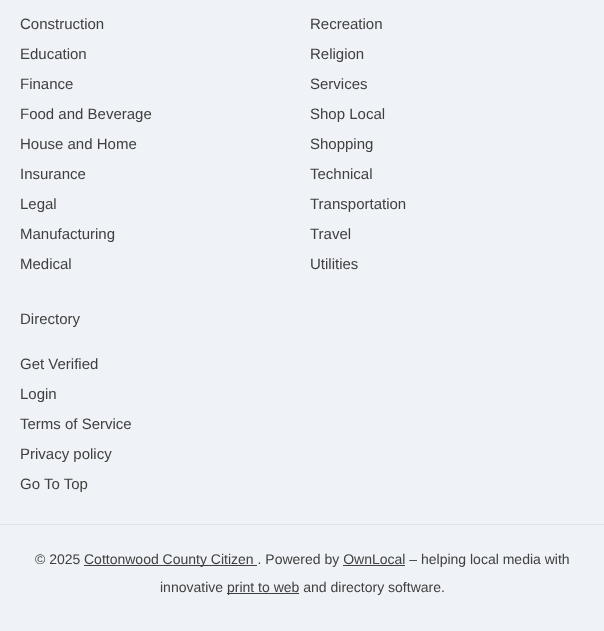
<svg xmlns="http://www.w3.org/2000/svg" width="604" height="631">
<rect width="100%" height="100%" fill="#eff2f6"/>
<text x="20" y="29" style="font-family:Liberation Sans;font-size:15px;fill:#404040">Construction</text>
<text x="310" y="29" style="font-family:Liberation Sans;font-size:15px;fill:#404040">Recreation</text>
<text x="20" y="59" style="font-family:Liberation Sans;font-size:15px;fill:#404040">Education</text>
<text x="310" y="59" style="font-family:Liberation Sans;font-size:15px;fill:#404040">Religion</text>
<text x="20" y="89" style="font-family:Liberation Sans;font-size:15px;fill:#404040">Finance</text>
<text x="310" y="89" style="font-family:Liberation Sans;font-size:15px;fill:#404040">Services</text>
<text x="20" y="119" style="font-family:Liberation Sans;font-size:15px;fill:#404040">Food and Beverage</text>
<text x="310" y="119" style="font-family:Liberation Sans;font-size:15px;fill:#404040">Shop Local</text>
<text x="20" y="149" style="font-family:Liberation Sans;font-size:15px;fill:#404040">House and Home</text>
<text x="310" y="149" style="font-family:Liberation Sans;font-size:15px;fill:#404040">Shopping</text>
<text x="20" y="179" style="font-family:Liberation Sans;font-size:15px;fill:#404040">Insurance</text>
<text x="310" y="179" style="font-family:Liberation Sans;font-size:15px;fill:#404040">Technical</text>
<text x="20" y="209" style="font-family:Liberation Sans;font-size:15px;fill:#404040">Legal</text>
<text x="310" y="209" style="font-family:Liberation Sans;font-size:15px;fill:#404040">Transportation</text>
<text x="20" y="239" style="font-family:Liberation Sans;font-size:15px;fill:#404040">Manufacturing</text>
<text x="310" y="239" style="font-family:Liberation Sans;font-size:15px;fill:#404040">Travel</text>
<text x="20" y="269" style="font-family:Liberation Sans;font-size:15px;fill:#404040">Medical</text>
<text x="310" y="269" style="font-family:Liberation Sans;font-size:15px;fill:#404040">Utilities</text>
<text x="20" y="324" style="font-family:Liberation Sans;font-size:15px;fill:#404040">Directory</text>
<text x="20" y="369" style="font-family:Liberation Sans;font-size:15px;fill:#404040">Get Verified</text>
<text x="20" y="399" style="font-family:Liberation Sans;font-size:15px;fill:#404040">Login</text>
<text x="20" y="429" style="font-family:Liberation Sans;font-size:15px;fill:#404040">Terms of Service</text>
<text x="20" y="459" style="font-family:Liberation Sans;font-size:15px;fill:#404040">Privacy policy</text>
<text x="20" y="489" style="font-family:Liberation Sans;font-size:15px;fill:#404040">Go To Top</text>
<rect y="524" width="604" height="1" fill="#dfe3ea"/>
<text x="35" y="564" style="font-family:Liberation Sans;font-size:14px;fill:#404040">© 2025</text>
<rect x="84" y="565" width="173" height="1" fill="#404040"/>
<text x="84" y="564" style="font-family:Liberation Sans;font-size:14px;fill:#404040">Cottonwood County Citizen . Powered by OwnLocal – helping local media with</text>
<rect x="343" y="565" width="62" height="1" fill="#404040"/>
<text x="160" y="592" style="font-family:Liberation Sans;font-size:14px;fill:#404040">innovative</text>
<rect x="227" y="593" width="72" height="1" fill="#404040"/>
<text x="227" y="592" style="font-family:Liberation Sans;font-size:14px;fill:#404040">print to web and directory software.</text>
</svg>
